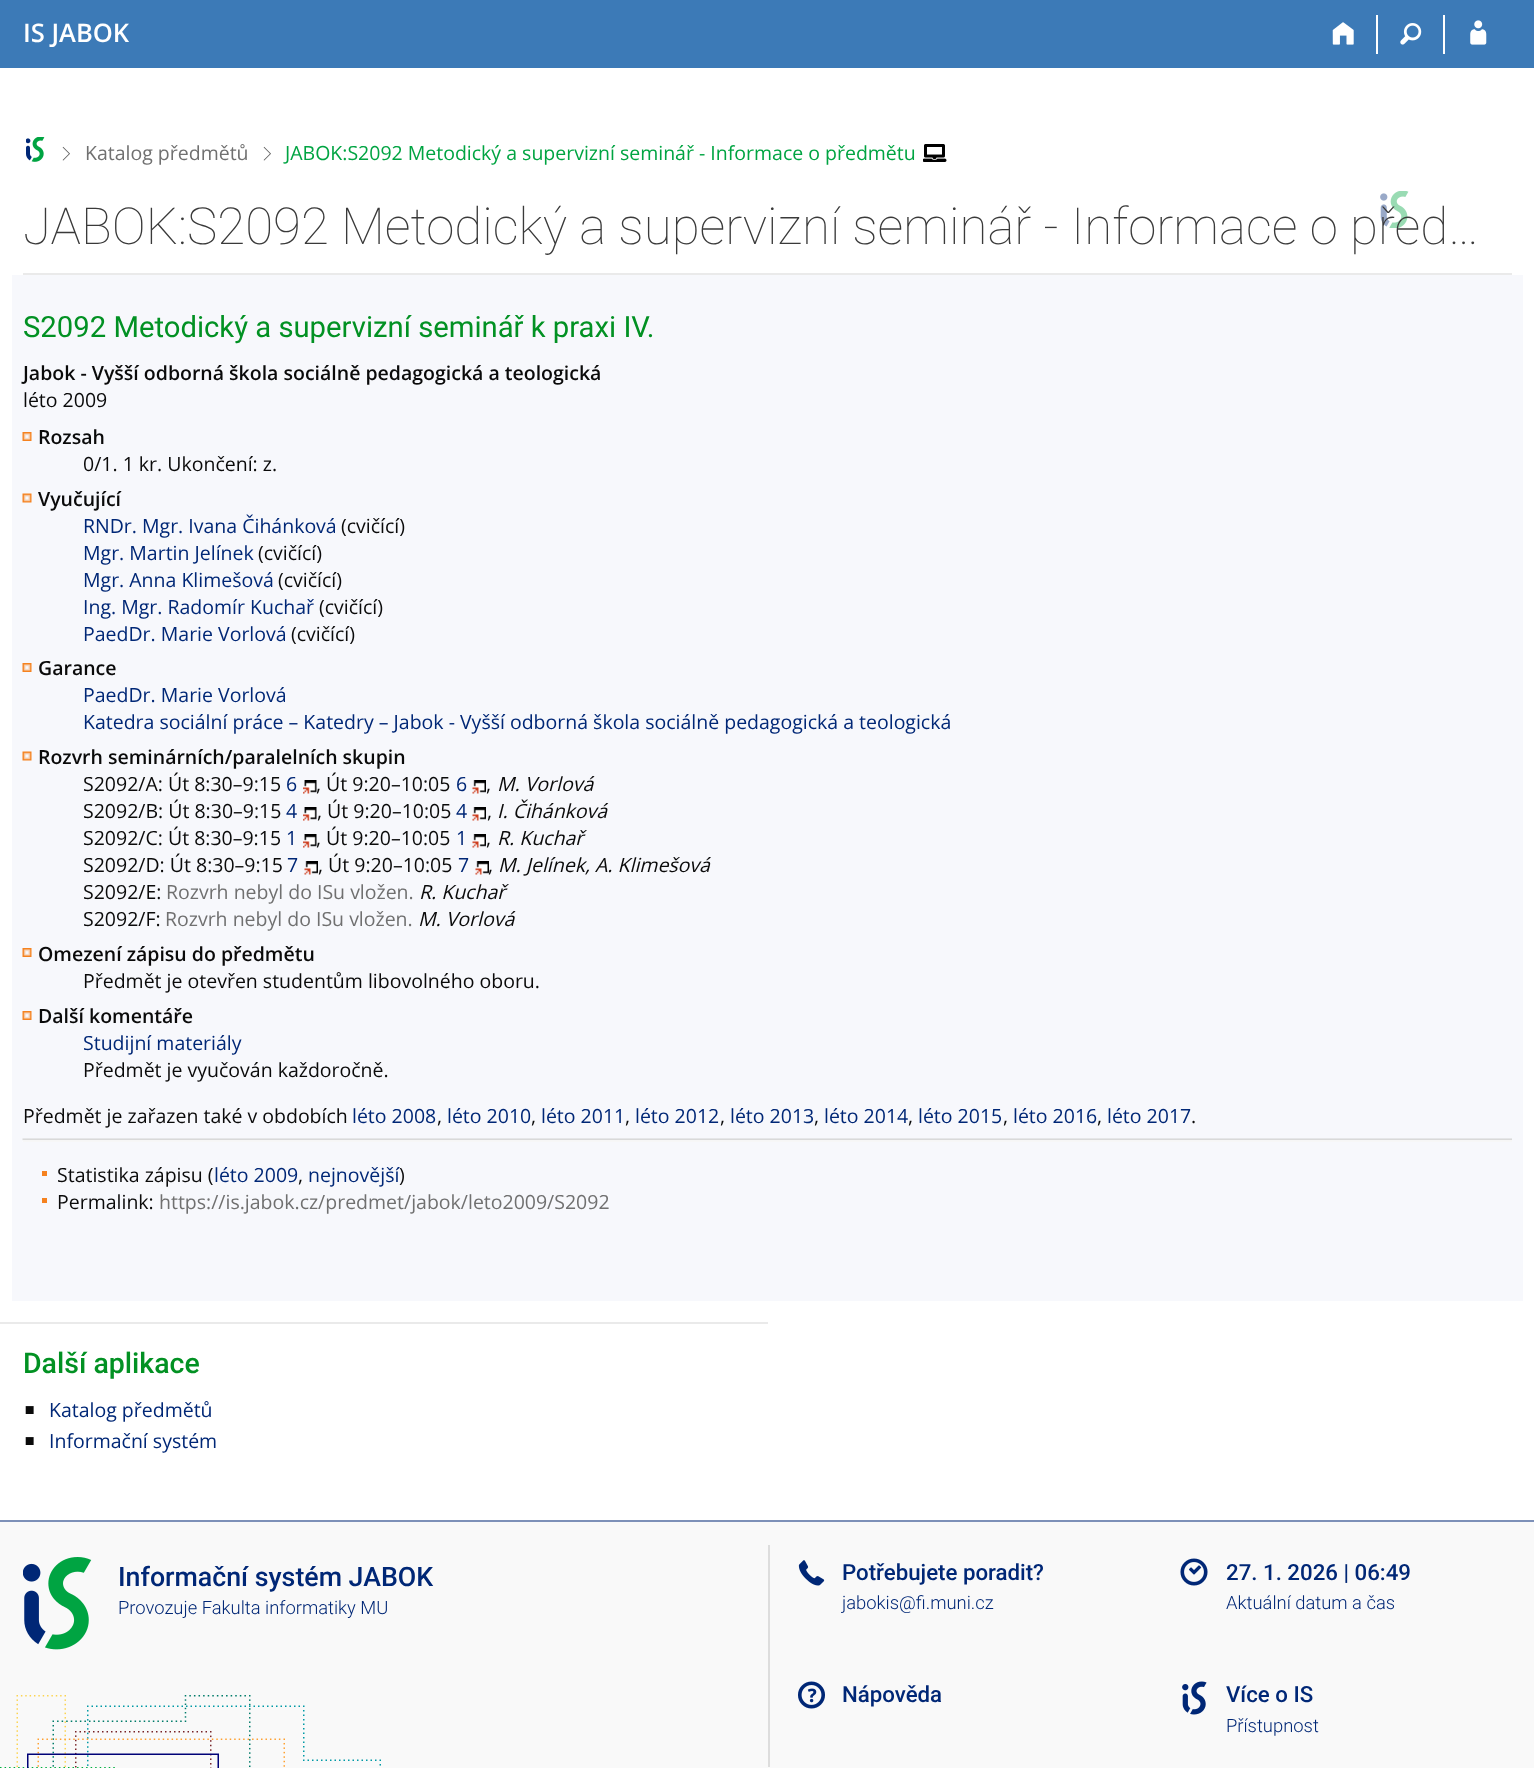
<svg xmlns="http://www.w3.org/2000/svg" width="1534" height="1768">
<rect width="100%" height="100%" fill="#fff"/>
<rect width="1534" height="68" fill="#3c7ab7"/>
<text x="23" y="42" style="font-family:Open Sans;font-size:25.5px;font-weight:600;fill:#fff">IS JABOK</text>
<rect x="1376" y="15" width="2" height="39" fill="#fff"/>
<image x="1332" y="22" width="22" height="23" href="media/1.png"/>
<rect x="1443" y="15" width="2" height="39" fill="#fff"/>
<image x="1400" y="23" width="22" height="22" href="media/2.png"/>
<image x="1470" y="20" width="17" height="25" href="media/3.png"/>
<image x="26" y="137" width="19" height="25" href="media/4.png"/>
<image x="62" y="146" width="8" height="15" href="media/5.png"/>
<text x="85" y="160" style="font-family:Open Sans;font-size:19.5px;fill:#707070">Katalog předmětů</text>
<image x="263" y="146" width="8" height="15" href="media/5.png"/>
<text x="285" y="160" style="font-family:Open Sans;font-size:19.5px;fill:#00a442">JABOK:S2092 Metodický a supervizní seminář - Informace o předmětu</text>
<image x="923" y="144" width="24" height="18" href="media/6.png"/>
<image x="1380" y="191" width="29" height="37" href="media/7.png"/>
<text x="23" y="244" style="font-family:Roboto;font-size:51px;font-weight:100;fill:#3a3a3a">JABOK:S2092 Metodický a supervizní seminář - Informace o před…</text>
<rect x="23" y="273" width="1489" height="2" fill="#eaeaea"/>
<rect x="12" y="275" width="1511" height="1026" fill="#f7f8fc"/>
<text x="23" y="337" style="font-family:Roboto;font-size:29.25px;fill:#029123">S2092 Metodický a supervizní seminář k praxi IV.</text>
<text x="23" y="380" style="font-family:Open Sans;font-size:19.5px;font-weight:600;fill:#0a0a0a">Jabok - Vyšší odborná škola sociálně pedagogická a teologická</text>
<text x="23" y="407" style="font-family:Open Sans;font-size:19.5px;fill:#0a0a0a">léto 2009</text>
<image x="22" y="432" width="10" height="9" href="media/8.png"/>
<text x="38" y="444" style="font-family:Open Sans;font-size:19.5px;font-weight:600;fill:#0a0a0a">Rozsah</text>
<text x="83" y="471" style="font-family:Open Sans;font-size:19.5px;fill:#0a0a0a">0/1. 1 kr. Ukončení: z.</text>
<image x="22" y="493" width="10" height="10" href="media/9.png"/>
<text x="38" y="506" style="font-family:Open Sans;font-size:19.5px;font-weight:600;fill:#0a0a0a">Vyučující</text>
<text x="83" y="533" style="font-family:Open Sans;font-size:19.5px;fill:#002776">RNDr. Mgr. Ivana Čihánková</text>
<text x="341" y="533" style="font-family:Open Sans;font-size:19.5px;fill:#0a0a0a">(cvičící)</text>
<text x="83" y="560" style="font-family:Open Sans;font-size:19.5px;fill:#002776">Mgr. Martin Jelínek</text>
<text x="258" y="560" style="font-family:Open Sans;font-size:19.5px;fill:#0a0a0a">(cvičící)</text>
<text x="83" y="587" style="font-family:Open Sans;font-size:19.5px;fill:#002776">Mgr. Anna Klimešová</text>
<text x="278" y="587" style="font-family:Open Sans;font-size:19.5px;fill:#0a0a0a">(cvičící)</text>
<text x="83" y="614" style="font-family:Open Sans;font-size:19.5px;fill:#002776">Ing. Mgr. Radomír Kuchař</text>
<text x="319" y="614" style="font-family:Open Sans;font-size:19.5px;fill:#0a0a0a">(cvičící)</text>
<text x="83" y="641" style="font-family:Open Sans;font-size:19.5px;fill:#002776">PaedDr. Marie Vorlová</text>
<text x="291" y="641" style="font-family:Open Sans;font-size:19.5px;fill:#0a0a0a">(cvičící)</text>
<image x="22" y="663" width="10" height="9" href="media/8.png"/>
<text x="38" y="675" style="font-family:Open Sans;font-size:19.5px;font-weight:600;fill:#0a0a0a">Garance</text>
<text x="83" y="702" style="font-family:Open Sans;font-size:19.5px;fill:#002776">PaedDr. Marie Vorlová</text>
<text x="83" y="729" style="font-family:Open Sans;font-size:19.5px;fill:#002776">Katedra sociální práce – Katedry – Jabok - Vyšší odborná škola sociálně pedagogická a teologická</text>
<image x="22" y="751" width="10" height="10" href="media/9.png"/>
<text x="38" y="764" style="font-family:Open Sans;font-size:19.5px;font-weight:600;fill:#0a0a0a">Rozvrh seminárních/paralelních skupin</text>
<text x="83" y="791" style="font-family:Open Sans;font-size:19.5px;fill:#0a0a0a">S2092/A: Út 8:30–9:15</text>
<text x="286" y="791" style="font-family:Open Sans;font-size:19.5px;fill:#002776">6</text>
<image x="303" y="780" width="14" height="14" href="media/10.png"/>
<text x="316" y="791" style="font-family:Open Sans;font-size:19.5px;fill:#0a0a0a">, Út 9:20–10:05</text>
<text x="456" y="791" style="font-family:Open Sans;font-size:19.5px;fill:#002776">6</text>
<image x="472" y="780" width="14" height="14" href="media/11.png"/>
<text x="486" y="791" style="font-family:Open Sans;font-size:19.5px;fill:#0a0a0a">,</text>
<text x="497" y="791" style="font-family:Open Sans;font-size:19.5px;font-style:italic;fill:#0a0a0a">M. Vorlová</text>
<text x="83" y="818" style="font-family:Open Sans;font-size:19.5px;fill:#0a0a0a">S2092/B: Út 8:30–9:15</text>
<text x="286" y="818" style="font-family:Open Sans;font-size:19.5px;fill:#002776">4</text>
<image x="303" y="807" width="14" height="14" href="media/10.png"/>
<text x="317" y="818" style="font-family:Open Sans;font-size:19.5px;fill:#0a0a0a">, Út 9:20–10:05</text>
<text x="456" y="818" style="font-family:Open Sans;font-size:19.5px;fill:#002776">4</text>
<image x="472" y="807" width="14" height="14" href="media/11.png"/>
<text x="487" y="818" style="font-family:Open Sans;font-size:19.5px;fill:#0a0a0a">,</text>
<text x="497" y="818" style="font-family:Open Sans;font-size:19.5px;font-style:italic;fill:#0a0a0a">I. Čihánková</text>
<text x="83" y="845" style="font-family:Open Sans;font-size:19.5px;fill:#0a0a0a">S2092/C: Út 8:30–9:15</text>
<text x="286" y="845" style="font-family:Open Sans;font-size:19.5px;fill:#002776">1</text>
<image x="303" y="834" width="14" height="14" href="media/10.png"/>
<text x="316" y="845" style="font-family:Open Sans;font-size:19.5px;fill:#0a0a0a">, Út 9:20–10:05</text>
<text x="456" y="845" style="font-family:Open Sans;font-size:19.5px;fill:#002776">1</text>
<image x="472" y="834" width="14" height="14" href="media/11.png"/>
<text x="486" y="845" style="font-family:Open Sans;font-size:19.5px;fill:#0a0a0a">,</text>
<text x="497" y="845" style="font-family:Open Sans;font-size:19.5px;font-style:italic;fill:#0a0a0a">R. Kuchař</text>
<text x="83" y="872" style="font-family:Open Sans;font-size:19.5px;fill:#0a0a0a">S2092/D: Út 8:30–9:15</text>
<text x="287" y="872" style="font-family:Open Sans;font-size:19.5px;fill:#002776">7</text>
<image x="304" y="861" width="14" height="14" href="media/11.png"/>
<text x="318" y="872" style="font-family:Open Sans;font-size:19.5px;fill:#0a0a0a">, Út 9:20–10:05</text>
<text x="458" y="872" style="font-family:Open Sans;font-size:19.5px;fill:#002776">7</text>
<image x="475" y="861" width="14" height="14" href="media/11.png"/>
<text x="488" y="872" style="font-family:Open Sans;font-size:19.5px;fill:#0a0a0a">,</text>
<text x="498" y="872" style="font-family:Open Sans;font-size:19.5px;font-style:italic;fill:#0a0a0a">M. Jelínek, A. Klimešová</text>
<text x="83" y="899" style="font-family:Open Sans;font-size:19.5px;fill:#0a0a0a">S2092/E:</text>
<text x="166" y="899" style="font-family:Open Sans;font-size:19.5px;fill:#707070">Rozvrh nebyl do ISu vložen.</text>
<text x="419" y="899" style="font-family:Open Sans;font-size:19.5px;font-style:italic;fill:#0a0a0a">R. Kuchař</text>
<text x="83" y="926" style="font-family:Open Sans;font-size:19.5px;fill:#0a0a0a">S2092/F:</text>
<text x="165" y="926" style="font-family:Open Sans;font-size:19.5px;fill:#707070">Rozvrh nebyl do ISu vložen.</text>
<text x="418" y="926" style="font-family:Open Sans;font-size:19.5px;font-style:italic;fill:#0a0a0a">M. Vorlová</text>
<image x="22" y="948" width="10" height="9" href="media/8.png"/>
<text x="38" y="961" style="font-family:Open Sans;font-size:19.5px;font-weight:600;fill:#0a0a0a">Omezení zápisu do předmětu</text>
<text x="83" y="988" style="font-family:Open Sans;font-size:19.5px;fill:#0a0a0a">Předmět je otevřen studentům libovolného oboru.</text>
<image x="22" y="1011" width="10" height="9" href="media/8.png"/>
<text x="38" y="1023" style="font-family:Open Sans;font-size:19.5px;font-weight:600;fill:#0a0a0a">Další komentáře</text>
<text x="83" y="1050" style="font-family:Open Sans;font-size:19.5px;fill:#002776">Studijní materiály</text>
<text x="83" y="1077" style="font-family:Open Sans;font-size:19.5px;fill:#0a0a0a">Předmět je vyučován každoročně.</text>
<text x="23" y="1123" style="font-family:Open Sans;font-size:19.5px;fill:#0a0a0a">Předmět je zařazen také v obdobích</text>
<text x="352" y="1123" style="font-family:Open Sans;font-size:19.5px;fill:#002776">léto 2008</text>
<text x="437" y="1123" style="font-family:Open Sans;font-size:19.5px;fill:#0a0a0a">,</text>
<text x="447" y="1123" style="font-family:Open Sans;font-size:19.5px;fill:#002776">léto 2010</text>
<text x="531" y="1123" style="font-family:Open Sans;font-size:19.5px;fill:#0a0a0a">,</text>
<text x="541" y="1123" style="font-family:Open Sans;font-size:19.5px;fill:#002776">léto 2011</text>
<text x="625" y="1123" style="font-family:Open Sans;font-size:19.5px;fill:#0a0a0a">,</text>
<text x="635" y="1123" style="font-family:Open Sans;font-size:19.5px;fill:#002776">léto 2012</text>
<text x="720" y="1123" style="font-family:Open Sans;font-size:19.5px;fill:#0a0a0a">,</text>
<text x="730" y="1123" style="font-family:Open Sans;font-size:19.5px;fill:#002776">léto 2013</text>
<text x="814" y="1123" style="font-family:Open Sans;font-size:19.5px;fill:#0a0a0a">,</text>
<text x="824" y="1123" style="font-family:Open Sans;font-size:19.5px;fill:#002776">léto 2014</text>
<text x="908" y="1123" style="font-family:Open Sans;font-size:19.5px;fill:#0a0a0a">,</text>
<text x="918" y="1123" style="font-family:Open Sans;font-size:19.5px;fill:#002776">léto 2015</text>
<text x="1003" y="1123" style="font-family:Open Sans;font-size:19.5px;fill:#0a0a0a">,</text>
<text x="1013" y="1123" style="font-family:Open Sans;font-size:19.5px;fill:#002776">léto 2016</text>
<text x="1097" y="1123" style="font-family:Open Sans;font-size:19.5px;fill:#0a0a0a">,</text>
<text x="1107" y="1123" style="font-family:Open Sans;font-size:19.5px;fill:#002776">léto 2017</text>
<text x="1191" y="1123" style="font-family:Open Sans;font-size:19.5px;fill:#0a0a0a">.</text>
<rect x="23" y="1141" width="1489" height="1" fill="#eee"/>
<image x="22" y="1138" width="1490" height="4" href="media/12.png"/>
<rect x="42" y="1171" width="5" height="5" fill="#f5821f"/>
<text x="57" y="1182" style="font-family:Open Sans;font-size:19.5px;fill:#0a0a0a">Statistika zápisu (</text>
<text x="214" y="1182" style="font-family:Open Sans;font-size:19.5px;fill:#002776">léto 2009</text>
<text x="298" y="1182" style="font-family:Open Sans;font-size:19.5px;fill:#0a0a0a">,</text>
<text x="308" y="1182" style="font-family:Open Sans;font-size:19.5px;fill:#002776">nejnovější</text>
<text x="399" y="1182" style="font-family:Open Sans;font-size:19.5px;fill:#0a0a0a">)</text>
<rect x="42" y="1198" width="5" height="5" fill="#f5821f"/>
<text x="57" y="1209" style="font-family:Open Sans;font-size:19.5px;fill:#0a0a0a">Permalink:</text>
<text x="159" y="1209" style="font-family:Open Sans;font-size:19.5px;fill:#707070">https://is.jabok.cz/predmet/jabok/leto2009/S2092</text>
<rect y="1322" width="768" height="2" fill="#eaeaea"/>
<text x="23" y="1373" style="font-family:Roboto;font-size:28.5px;font-weight:500;fill:#029123">Další aplikace</text>
<text x="24" y="1420" style="font-family:Liberation Sans;font-size:32px;fill:#0a0a0a">▪</text>
<text x="49" y="1417" style="font-family:Open Sans;font-size:19.5px;fill:#002776">Katalog předmětů</text>
<text x="24" y="1451" style="font-family:Liberation Sans;font-size:32px;fill:#0a0a0a">▪</text>
<text x="49" y="1448" style="font-family:Open Sans;font-size:19.5px;fill:#002776">Informační systém</text>
<rect y="1522" width="1534" height="246" fill="#f9f9f9"/>
<rect y="1520" width="1534" height="2" fill="#7d90b8"/>
<image x="0" y="1695" width="381" height="73" href="media/13.png"/>
<image x="23" y="1557" width="69" height="93" href="media/14.png"/>
<text x="118" y="1586" style="font-family:Roboto;font-size:26.75px;font-weight:500;fill:#002776">Informační systém JABOK</text>
<text x="118" y="1614" style="font-family:Roboto;font-size:18.4px;font-weight:300;fill:#002776">Provozuje Fakulta informatiky MU</text>
<rect x="768" y="1545" width="2" height="222" fill="#ddd"/>
<image x="798" y="1560" width="27" height="26" href="media/15.png"/>
<text x="842" y="1580" style="font-family:Roboto;font-size:22.25px;font-weight:500;fill:#002776">Potřebujete poradit?</text>
<text x="842" y="1609" style="font-family:Roboto;font-size:18.4px;font-weight:300;fill:#002776">jabokis@fi.muni.cz</text>
<image x="798" y="1681" width="27" height="28" href="media/16.png"/>
<text x="842" y="1702" style="font-family:Roboto;font-size:22.25px;font-weight:500;fill:#002776">Nápověda</text>
<image x="1180" y="1558" width="28" height="28" href="media/17.png"/>
<text x="1226" y="1580" style="font-family:Roboto;font-size:22.25px;font-weight:500;fill:#002776">27. 1. 2026 | 06:49</text>
<text x="1226" y="1609" style="font-family:Roboto;font-size:18.4px;font-weight:300;fill:#002776">Aktuální datum a čas</text>
<image x="1182" y="1681" width="25" height="34" href="media/18.png"/>
<text x="1226" y="1702" style="font-family:Roboto;font-size:22.25px;font-weight:500;fill:#002776">Více o IS</text>
<text x="1226" y="1732" style="font-family:Roboto;font-size:18.4px;font-weight:300;fill:#002776">Přístupnost</text>
</svg>
